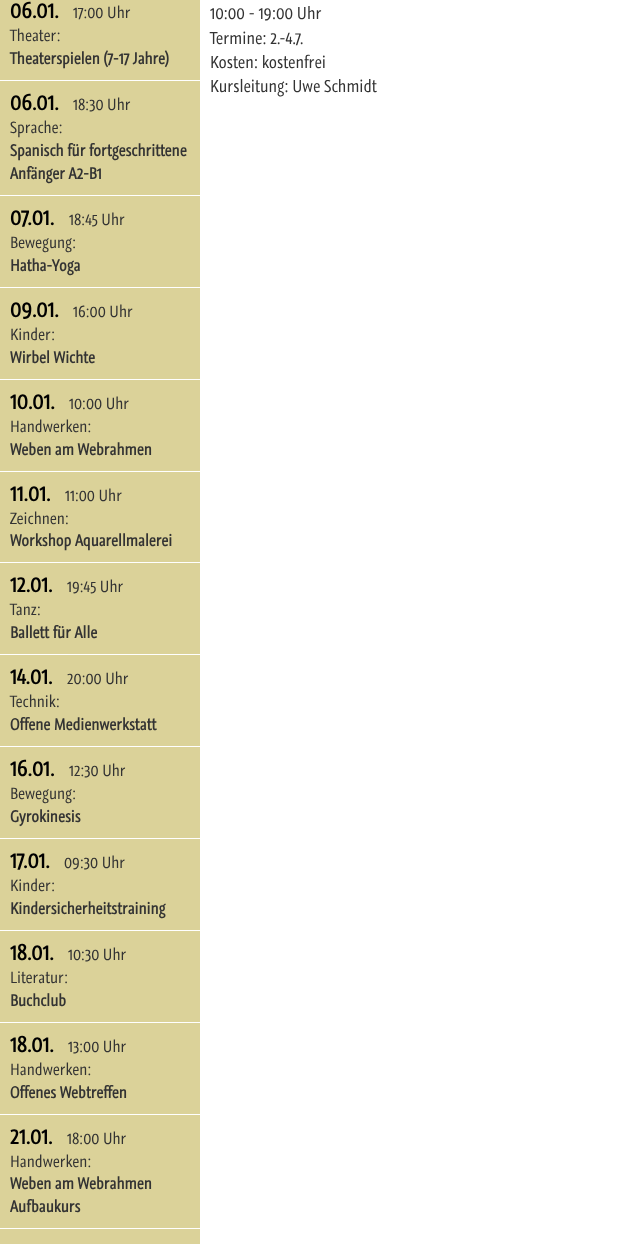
<svg xmlns="http://www.w3.org/2000/svg" width="622" height="1244">
<rect width="100%" height="100%" fill="#fff"/>
<rect width="200" height="1244" fill="#dbd299"/>
<rect y="80" width="200" height="1" fill="#fff"/>
<text x="10" y="18" style="font-family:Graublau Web;font-size:21px;font-weight:bold;fill:#000">06.01.</text>
<text x="73" y="18" style="font-family:Graublau Web;font-size:15.25px;fill:#333">17:00 Uhr</text>
<text x="10" y="41" style="font-family:Graublau Web;font-size:15.25px;fill:#333">Theater:</text>
<text x="10" y="64" style="font-family:Graublau Web;font-size:15.25px;font-weight:bold;fill:#333">Theaterspielen (7-17 Jahre)</text>
<rect y="195" width="200" height="1" fill="#fff"/>
<text x="10" y="110" style="font-family:Graublau Web;font-size:21px;font-weight:bold;fill:#000">06.01.</text>
<text x="73" y="110" style="font-family:Graublau Web;font-size:15.25px;fill:#333">18:30 Uhr</text>
<text x="10" y="133" style="font-family:Graublau Web;font-size:15.25px;fill:#333">Sprache:</text>
<text x="10" y="156" style="font-family:Graublau Web;font-size:15.25px;font-weight:bold;fill:#333">Spanisch für fortgeschrittene</text>
<text x="10" y="179" style="font-family:Graublau Web;font-size:15.25px;font-weight:bold;fill:#333">Anfänger A2-B1</text>
<rect y="287" width="200" height="1" fill="#fff"/>
<text x="10" y="225" style="font-family:Graublau Web;font-size:21px;font-weight:bold;fill:#000">07.01.</text>
<text x="69" y="225" style="font-family:Graublau Web;font-size:15.25px;fill:#333">18:45 Uhr</text>
<text x="10" y="248" style="font-family:Graublau Web;font-size:15.25px;fill:#333">Bewegung:</text>
<text x="10" y="271" style="font-family:Graublau Web;font-size:15.25px;font-weight:bold;fill:#333">Hatha-Yoga</text>
<rect y="379" width="200" height="1" fill="#fff"/>
<text x="10" y="317" style="font-family:Graublau Web;font-size:21px;font-weight:bold;fill:#000">09.01.</text>
<text x="73" y="317" style="font-family:Graublau Web;font-size:15.25px;fill:#333">16:00 Uhr</text>
<text x="10" y="340" style="font-family:Graublau Web;font-size:15.25px;fill:#333">Kinder:</text>
<text x="10" y="363" style="font-family:Graublau Web;font-size:15.25px;font-weight:bold;fill:#333">Wirbel Wichte</text>
<rect y="471" width="200" height="1" fill="#fff"/>
<text x="10" y="409" style="font-family:Graublau Web;font-size:21px;font-weight:bold;fill:#000">10.01.</text>
<text x="69" y="409" style="font-family:Graublau Web;font-size:15.25px;fill:#333">10:00 Uhr</text>
<text x="10" y="432" style="font-family:Graublau Web;font-size:15.25px;fill:#333">Handwerken:</text>
<text x="10" y="455" style="font-family:Graublau Web;font-size:15.25px;font-weight:bold;fill:#333">Weben am Webrahmen</text>
<rect y="562" width="200" height="1" fill="#fff"/>
<text x="10" y="501" style="font-family:Graublau Web;font-size:21px;font-weight:bold;fill:#000">11.01.</text>
<text x="65" y="501" style="font-family:Graublau Web;font-size:15.25px;fill:#333">11:00 Uhr</text>
<text x="10" y="524" style="font-family:Graublau Web;font-size:15.25px;fill:#333">Zeichnen:</text>
<text x="10" y="546" style="font-family:Graublau Web;font-size:15.25px;font-weight:bold;fill:#333">Workshop Aquarellmalerei</text>
<rect y="654" width="200" height="1" fill="#fff"/>
<text x="10" y="592" style="font-family:Graublau Web;font-size:21px;font-weight:bold;fill:#000">12.01.</text>
<text x="67" y="592" style="font-family:Graublau Web;font-size:15.25px;fill:#333">19:45 Uhr</text>
<text x="10" y="615" style="font-family:Graublau Web;font-size:15.25px;fill:#333">Tanz:</text>
<text x="10" y="638" style="font-family:Graublau Web;font-size:15.25px;font-weight:bold;fill:#333">Ballett für Alle</text>
<rect y="746" width="200" height="1" fill="#fff"/>
<text x="10" y="684" style="font-family:Graublau Web;font-size:21px;font-weight:bold;fill:#000">14.01.</text>
<text x="67" y="684" style="font-family:Graublau Web;font-size:15.25px;fill:#333">20:00 Uhr</text>
<text x="10" y="707" style="font-family:Graublau Web;font-size:15.25px;fill:#333">Technik:</text>
<text x="10" y="730" style="font-family:Graublau Web;font-size:15.25px;font-weight:bold;fill:#333">Offene Medienwerkstatt</text>
<rect y="838" width="200" height="1" fill="#fff"/>
<text x="10" y="776" style="font-family:Graublau Web;font-size:21px;font-weight:bold;fill:#000">16.01.</text>
<text x="69" y="776" style="font-family:Graublau Web;font-size:15.25px;fill:#333">12:30 Uhr</text>
<text x="10" y="799" style="font-family:Graublau Web;font-size:15.25px;fill:#333">Bewegung:</text>
<text x="10" y="822" style="font-family:Graublau Web;font-size:15.25px;font-weight:bold;fill:#333">Gyrokinesis</text>
<rect y="930" width="200" height="1" fill="#fff"/>
<text x="10" y="868" style="font-family:Graublau Web;font-size:21px;font-weight:bold;fill:#000">17.01.</text>
<text x="64" y="868" style="font-family:Graublau Web;font-size:15.25px;fill:#333">09:30 Uhr</text>
<text x="10" y="891" style="font-family:Graublau Web;font-size:15.25px;fill:#333">Kinder:</text>
<text x="10" y="914" style="font-family:Graublau Web;font-size:15.25px;font-weight:bold;fill:#333">Kindersicherheitstraining</text>
<rect y="1022" width="200" height="1" fill="#fff"/>
<text x="10" y="960" style="font-family:Graublau Web;font-size:21px;font-weight:bold;fill:#000">18.01.</text>
<text x="68" y="960" style="font-family:Graublau Web;font-size:15.25px;fill:#333">10:30 Uhr</text>
<text x="10" y="983" style="font-family:Graublau Web;font-size:15.25px;fill:#333">Literatur:</text>
<text x="10" y="1006" style="font-family:Graublau Web;font-size:15.25px;font-weight:bold;fill:#333">Buchclub</text>
<rect y="1114" width="200" height="1" fill="#fff"/>
<text x="10" y="1052" style="font-family:Graublau Web;font-size:21px;font-weight:bold;fill:#000">18.01.</text>
<text x="68" y="1052" style="font-family:Graublau Web;font-size:15.25px;fill:#333">13:00 Uhr</text>
<text x="10" y="1075" style="font-family:Graublau Web;font-size:15.25px;fill:#333">Handwerken:</text>
<text x="10" y="1098" style="font-family:Graublau Web;font-size:15.25px;font-weight:bold;fill:#333">Offenes Webtreffen</text>
<rect y="1228" width="200" height="1" fill="#fff"/>
<text x="10" y="1144" style="font-family:Graublau Web;font-size:21px;font-weight:bold;fill:#000">21.01.</text>
<text x="67" y="1144" style="font-family:Graublau Web;font-size:15.25px;fill:#333">18:00 Uhr</text>
<text x="10" y="1167" style="font-family:Graublau Web;font-size:15.25px;fill:#333">Handwerken:</text>
<text x="10" y="1189" style="font-family:Graublau Web;font-size:15.25px;font-weight:bold;fill:#333">Weben am Webrahmen</text>
<text x="10" y="1212" style="font-family:Graublau Web;font-size:15.25px;font-weight:bold;fill:#333">Aufbaukurs</text>
<text x="210" y="19" style="font-family:Graublau Web;font-size:16.1px;fill:#333">10:00 - 19:00 Uhr</text>
<text x="210" y="44" style="font-family:Graublau Web;font-size:16.1px;fill:#333">Termine: 2.-4.7.</text>
<text x="210" y="68" style="font-family:Graublau Web;font-size:16.1px;fill:#333">Kosten: kostenfrei</text>
<text x="210" y="92" style="font-family:Graublau Web;font-size:16.1px;fill:#333">Kursleitung: Uwe Schmidt</text>
</svg>
